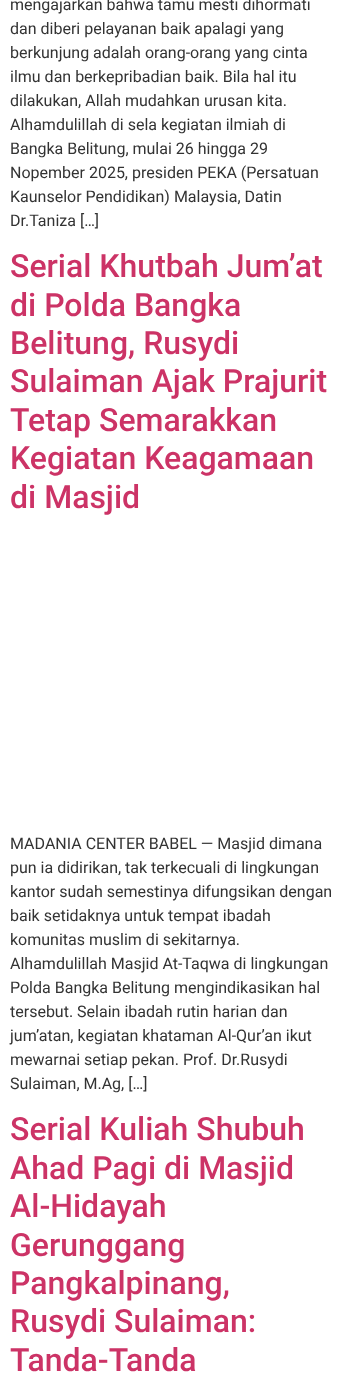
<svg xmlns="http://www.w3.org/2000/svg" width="343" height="1395">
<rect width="100%" height="100%" fill="#fff"/>
<text x="10" y="10" style="font-family:Roboto;font-size:16px;fill:#333">mengajarkan bahwa tamu mesti dihormati</text>
<text x="10" y="34" style="font-family:Roboto;font-size:16px;fill:#333">dan diberi pelayanan baik apalagi yang</text>
<text x="10" y="58" style="font-family:Roboto;font-size:16px;fill:#333">berkunjung adalah orang-orang yang cinta</text>
<text x="10" y="82" style="font-family:Roboto;font-size:16px;fill:#333">ilmu dan berkepribadian baik. Bila hal itu</text>
<text x="10" y="106" style="font-family:Roboto;font-size:16px;fill:#333">dilakukan, Allah mudahkan urusan kita.</text>
<text x="10" y="130" style="font-family:Roboto;font-size:16px;fill:#333">Alhamdulillah di sela kegiatan ilmiah di</text>
<text x="10" y="154" style="font-family:Roboto;font-size:16px;fill:#333">Bangka Belitung, mulai 26 hingga 29</text>
<text x="10" y="178" style="font-family:Roboto;font-size:16px;fill:#333">Nopember 2025, presiden PEKA (Persatuan</text>
<text x="10" y="202" style="font-family:Roboto;font-size:16px;fill:#333">Kaunselor Pendidikan) Malaysia, Datin</text>
<text x="10" y="226" style="font-family:Roboto;font-size:16px;fill:#333">Dr.Taniza […]</text>
<text x="10" y="277" style="font-family:Roboto;font-size:32px;font-weight:500;fill:#c36">Serial Khutbah Jum’at</text>
<text x="10" y="316" style="font-family:Roboto;font-size:32px;font-weight:500;fill:#c36">di Polda Bangka</text>
<text x="10" y="354" style="font-family:Roboto;font-size:32px;font-weight:500;fill:#c36">Belitung, Rusydi</text>
<text x="10" y="392" style="font-family:Roboto;font-size:32px;font-weight:500;fill:#c36">Sulaiman Ajak Prajurit</text>
<text x="10" y="431" style="font-family:Roboto;font-size:32px;font-weight:500;fill:#c36">Tetap Semarakkan</text>
<text x="10" y="469" style="font-family:Roboto;font-size:32px;font-weight:500;fill:#c36">Kegiatan Keagamaan</text>
<text x="10" y="508" style="font-family:Roboto;font-size:32px;font-weight:500;fill:#c36">di Masjid</text>
<text x="10" y="849" style="font-family:Roboto;font-size:16px;fill:#333">MADANIA CENTER BABEL — Masjid dimana</text>
<text x="10" y="873" style="font-family:Roboto;font-size:16px;fill:#333">pun ia didirikan, tak terkecuali di lingkungan</text>
<text x="10" y="897" style="font-family:Roboto;font-size:16px;fill:#333">kantor sudah semestinya difungsikan dengan</text>
<text x="10" y="921" style="font-family:Roboto;font-size:16px;fill:#333">baik setidaknya untuk tempat ibadah</text>
<text x="10" y="945" style="font-family:Roboto;font-size:16px;fill:#333">komunitas muslim di sekitarnya.</text>
<text x="10" y="969" style="font-family:Roboto;font-size:16px;fill:#333">Alhamdulillah Masjid At-Taqwa di lingkungan</text>
<text x="10" y="993" style="font-family:Roboto;font-size:16px;fill:#333">Polda Bangka Belitung mengindikasikan hal</text>
<text x="10" y="1017" style="font-family:Roboto;font-size:16px;fill:#333">tersebut. Selain ibadah rutin harian dan</text>
<text x="10" y="1041" style="font-family:Roboto;font-size:16px;fill:#333">jum’atan, kegiatan khataman Al-Qur’an ikut</text>
<text x="10" y="1065" style="font-family:Roboto;font-size:16px;fill:#333">mewarnai setiap pekan. Prof. Dr.Rusydi</text>
<text x="10" y="1089" style="font-family:Roboto;font-size:16px;fill:#333">Sulaiman, M.Ag, […]</text>
<text x="10" y="1140" style="font-family:Roboto;font-size:32px;font-weight:500;fill:#c36">Serial Kuliah Shubuh</text>
<text x="10" y="1179" style="font-family:Roboto;font-size:32px;font-weight:500;fill:#c36">Ahad Pagi di Masjid</text>
<text x="10" y="1217" style="font-family:Roboto;font-size:32px;font-weight:500;fill:#c36">Al-Hidayah</text>
<text x="10" y="1256" style="font-family:Roboto;font-size:32px;font-weight:500;fill:#c36">Gerunggang</text>
<text x="10" y="1294" style="font-family:Roboto;font-size:32px;font-weight:500;fill:#c36">Pangkalpinang,</text>
<text x="10" y="1332" style="font-family:Roboto;font-size:32px;font-weight:500;fill:#c36">Rusydi Sulaiman:</text>
<text x="10" y="1371" style="font-family:Roboto;font-size:32px;font-weight:500;fill:#c36">Tanda-Tanda</text>
</svg>
